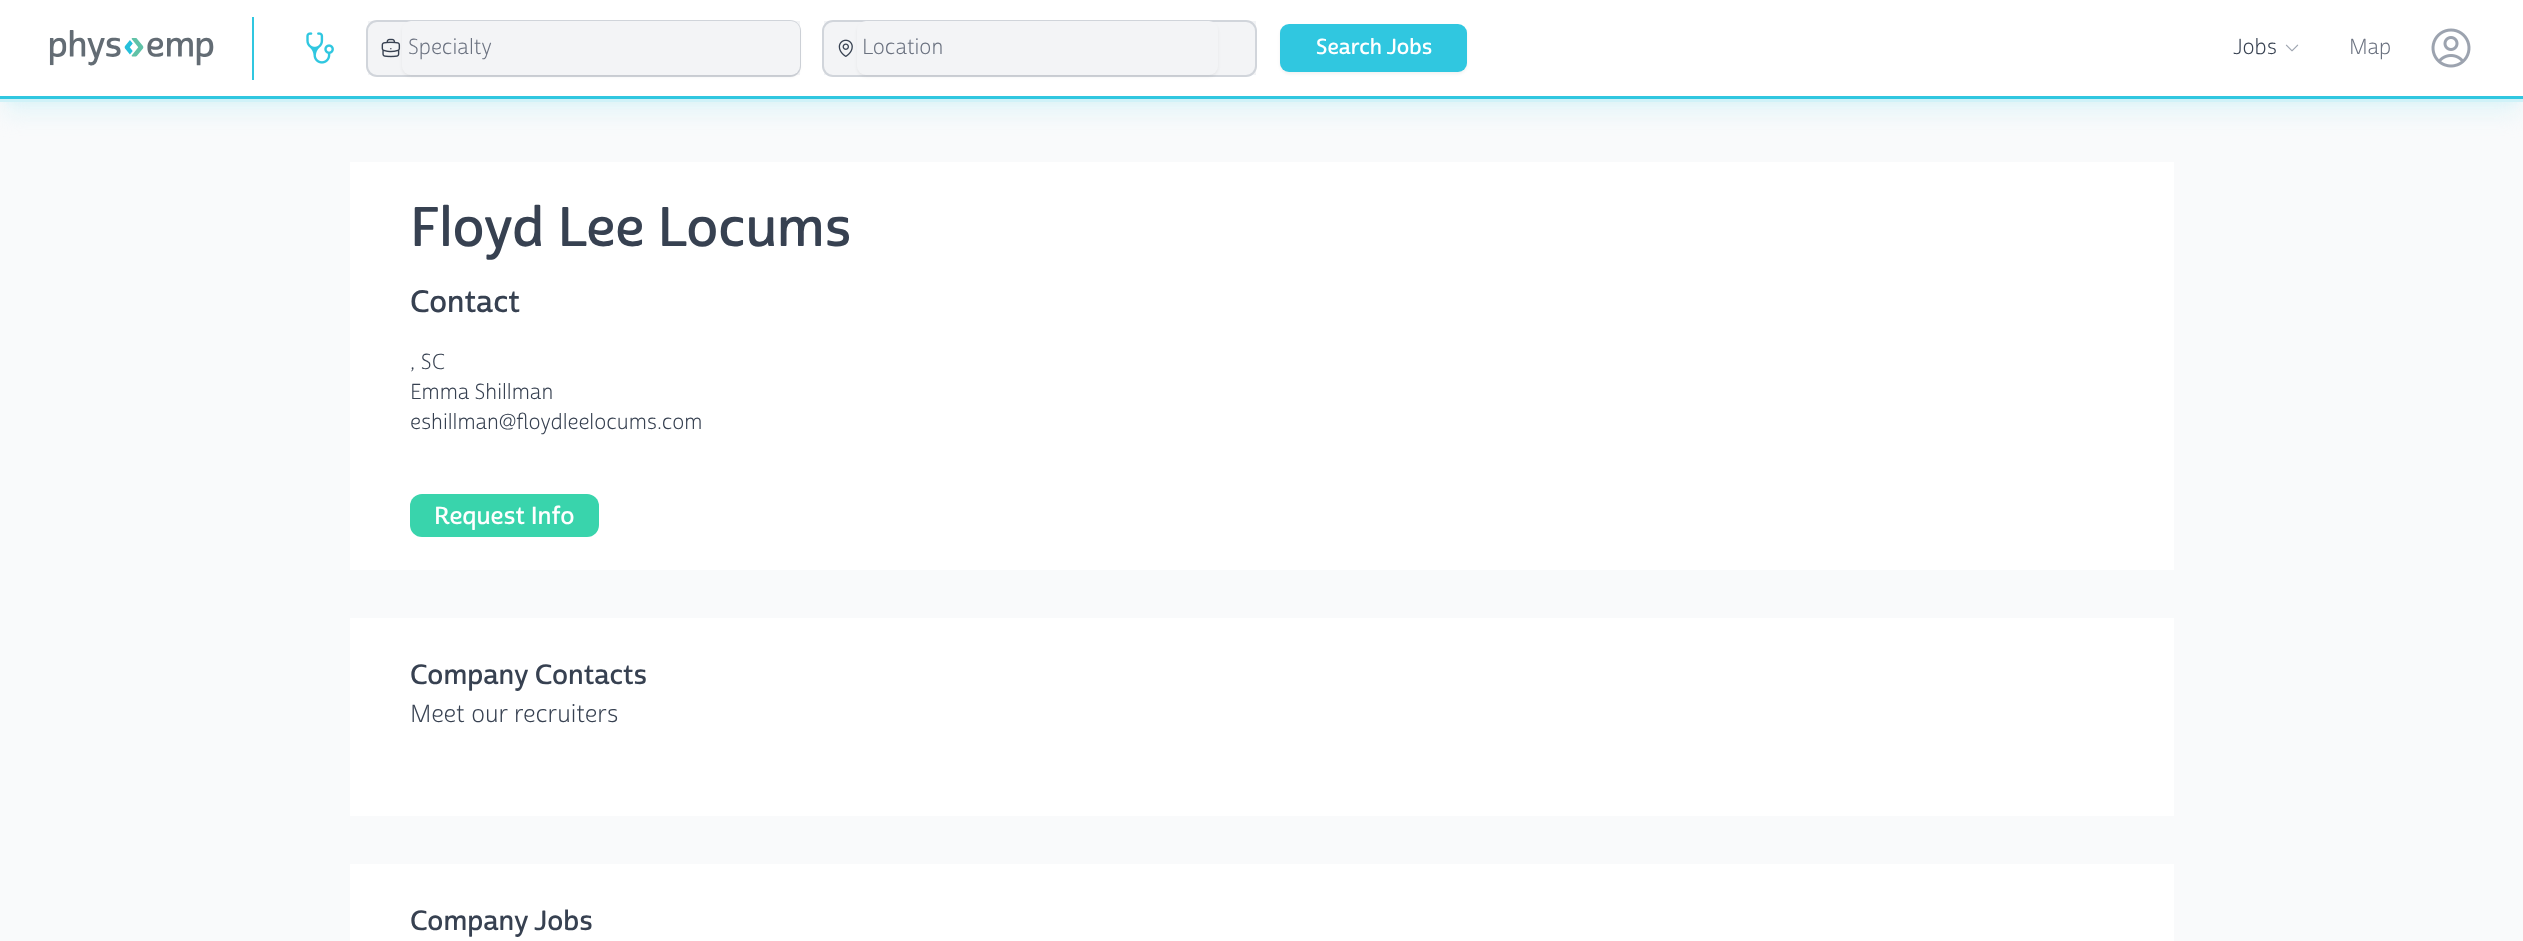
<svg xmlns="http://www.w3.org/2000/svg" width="2523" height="941">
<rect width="100%" height="100%" fill="#f9fafb"/>
<rect x="6" y="12" width="2511" height="90" fill="#d0f2f880" filter="blur(4.5px)"/>
<rect x="5" y="20" width="2514" height="93" fill="#d0f2f880" filter="blur(11px)"/>
<rect width="2523" height="96" fill="#fff"/>
<rect y="99" width="2523" height="3" fill="#d0f2f8"/>
<rect y="96" width="2523" height="3" fill="#30c7e0"/>
<image x="49" y="30" width="165" height="36" href="media/1.png"/>
<rect x="252" y="17" width="2" height="63" fill="#30c7e0"/>
<image x="306" y="32" width="28" height="32" href="media/2.png"/>
<rect x="368" y="21" width="432" height="54" fill="#f3f4f6"/>
<rect x="367" y="21" width="433" height="55" rx="10" fill="none" stroke="#d1d5db" stroke-width="2"/>
<rect x="402" y="23" width="398" height="54" rx="9" fill="#0000000d" filter="blur(1.5px)"/>
<image x="381" y="38" width="20" height="20" href="media/3.png"/>
<rect x="402" y="21" width="398" height="54" rx="9" fill="#f3f4f6"/>
<text x="408" y="54" style="font-family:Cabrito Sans;font-size:21px;fill:#6b7280">Specialty</text>
<rect x="824" y="21" width="432" height="54" fill="#f3f4f6"/>
<rect x="823" y="21" width="433" height="55" rx="10" fill="none" stroke="#d1d5db" stroke-width="2"/>
<rect x="857" y="23" width="361" height="54" rx="9" fill="#0000000d" filter="blur(1.5px)"/>
<image x="838" y="39" width="15" height="18" href="media/4.png"/>
<rect x="857" y="21" width="361" height="54" rx="9" fill="#f3f4f6"/>
<text x="862" y="54" style="font-family:Cabrito Sans;font-size:21px;fill:#6b7280">Location</text>
<rect x="1280" y="26" width="187" height="48" rx="9" fill="#0000000d" filter="blur(1.5px)"/>
<rect x="1280" y="24" width="187" height="48" rx="9" fill="#30c7e0"/>
<text x="1316" y="54" style="font-family:Cabrito Sans;font-size:21px;font-weight:bold;fill:#fff">Search Jobs</text>
<text x="2233" y="54" style="font-family:Cabrito Sans;font-size:21px;fill:#374151">Jobs</text>
<image x="2285" y="44" width="14" height="8" href="media/5.png"/>
<text x="2349" y="54" style="font-family:Cabrito Sans;font-size:21px;fill:#6b7280">Map</text>
<image x="2431" y="28" width="40" height="40" href="media/6.png"/>
<rect x="350" y="162" width="1824" height="408" fill="#fff"/>
<text x="410" y="246" style="font-family:Cabrito Sans;font-size:54px;font-weight:bold;fill:#374151">Floyd Lee Locums</text>
<text x="410" y="312" style="font-family:Cabrito Sans;font-size:30px;font-weight:bold;fill:#374151">Contact</text>
<text x="410" y="369" style="font-family:Cabrito Sans;font-size:21px;fill:#374151">, SC</text>
<text x="410" y="399" style="font-family:Cabrito Sans;font-size:21px;fill:#374151">Emma Shillman</text>
<text x="410" y="429" style="font-family:Cabrito Sans;font-size:21px;fill:#374151">eshillman@floydleelocums.com</text>
<rect x="410" y="494" width="189" height="43" rx="12" fill="#39d4ac"/>
<text x="434" y="524" style="font-family:Cabrito Sans;font-size:24px;font-weight:bold;fill:#fff">Request Info</text>
<rect x="350" y="618" width="1824" height="198" fill="#fff"/>
<text x="410" y="684" style="font-family:Cabrito Sans;font-size:27px;font-weight:bold;fill:#374151">Company Contacts</text>
<text x="410" y="722" style="font-family:Cabrito Sans;font-size:24px;fill:#374151">Meet our recruiters</text>
<rect x="350" y="864" width="1824" height="77" fill="#fff"/>
<text x="410" y="930" style="font-family:Cabrito Sans;font-size:27px;font-weight:bold;fill:#374151">Company Jobs</text>
</svg>
